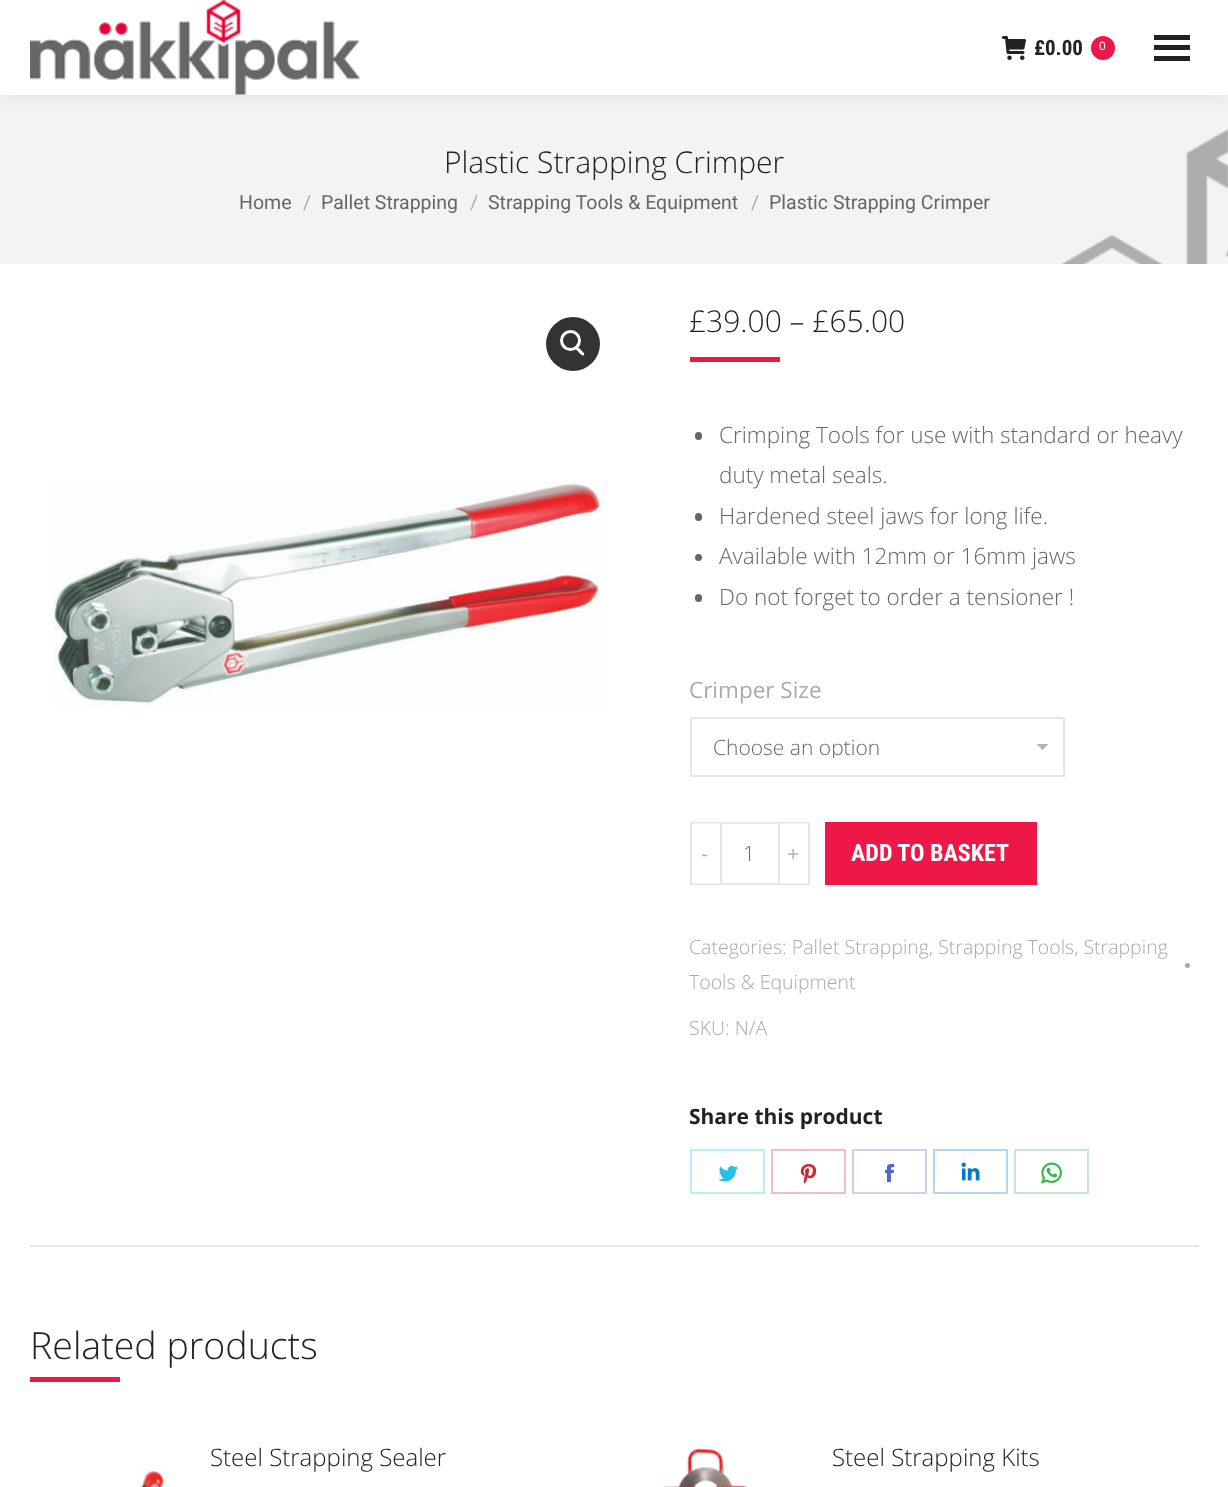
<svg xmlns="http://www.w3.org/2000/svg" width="1228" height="1487">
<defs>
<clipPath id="clip1"><rect x="714" y="737" width="305" height="21"/></clipPath>
</defs>
<rect width="100%" height="100%" fill="#fff"/>
<rect y="95" width="1228" height="169" fill="#f3f3f5"/>
<image x="1060" y="128" width="168" height="136" href="media/3.png"/>
<rect x="-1" y="-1" width="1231" height="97" fill="#00000012" filter="blur(11px)"/>
<rect width="1228" height="95" fill="#fff"/>
<image x="30" y="0" width="330" height="95" href="media/1.png"/>
<image x="1002" y="36" width="24" height="24" href="media/2.png"/>
<text x="1034" y="55" style="font-family:Roboto Condensed;font-size:21px;font-weight:bold;fill:#222">£0.00</text>
<circle cx="1103" cy="48" r="12" fill="#ed1848"/>
<text x="1099" y="50" style="font-family:Liberation Sans;font-size:12px;fill:#fff">0</text>
<rect x="1154" y="35" width="36" height="5" fill="#222"/>
<rect x="1154" y="45" width="36" height="5" fill="#222"/>
<rect x="1154" y="56" width="36" height="5" fill="#222"/>
<text x="444" y="173" style="font-family:Open Sans;font-size:30px;font-weight:300;fill:#222">Plastic Strapping Crimper</text>
<text x="239" y="209" style="font-family:Roboto;font-size:19.5px;fill:#666">Home</text>
<text x="303" y="209" style="font-family:Roboto;font-size:19.5px;fill:#aaa">/</text>
<text x="321" y="209" style="font-family:Roboto;font-size:19.5px;fill:#666">Pallet Strapping</text>
<text x="470" y="209" style="font-family:Roboto;font-size:19.5px;fill:#aaa">/</text>
<text x="488" y="209" style="font-family:Roboto;font-size:19.5px;fill:#666">Strapping Tools &amp; Equipment</text>
<text x="751" y="209" style="font-family:Roboto;font-size:19.5px;fill:#aaa">/</text>
<text x="769" y="209" style="font-family:Roboto;font-size:19.5px;fill:#666">Plastic Strapping Crimper</text>
<circle cx="573" cy="344" r="27" fill="#333"/>
<circle cx="570.5" cy="340.5" r="9" fill="none" stroke="#fff" stroke-width="3"/>
<path d="M575.5 347c1.5-2 4.5 2 5.5 3c.5 1 4.5 3.5 3 5c-1.5 2-4.5-2-5.5-3c-.5-1-4.5-3.5-3-5z" fill="#fff"/>
<image x="53" y="481" width="554" height="226" href="media/4.png"/>
<text x="689" y="332" style="font-family:Open Sans;font-size:30px;font-weight:300;fill:#222">£39.00 – £65.00</text>
<rect x="690" y="357" width="90" height="5" fill="#ed1848"/>
<rect x="695" y="432" width="7" height="8" rx="3.5" fill="#666"/>
<text x="719" y="443" style="font-family:Open Sans;font-size:22.5px;font-weight:300;fill:#666">Crimping Tools for use with standard or heavy</text>
<text x="719" y="483" style="font-family:Open Sans;font-size:22.5px;font-weight:300;fill:#666">duty metal seals.</text>
<rect x="695" y="513" width="7" height="8" rx="3.5" fill="#666"/>
<text x="719" y="524" style="font-family:Open Sans;font-size:22.5px;font-weight:300;fill:#666">Hardened steel jaws for long life.</text>
<circle cx="698.5" cy="557.5" r="3.5" fill="#666"/>
<text x="719" y="564" style="font-family:Open Sans;font-size:22.5px;font-weight:300;fill:#666">Available with 12mm or 16mm jaws</text>
<rect x="695" y="594" width="7" height="8" rx="3.5" fill="#666"/>
<text x="719" y="605" style="font-family:Open Sans;font-size:22.5px;font-weight:300;fill:#666">Do not forget to order a tensioner !</text>
<text x="689" y="698" style="font-family:Open Sans;font-size:22.5px;fill:#aaa">Crimper Size</text>
<path d="M1036.5 744l6 6l6-6z" fill="#b3b3b3"/>
<rect x="691" y="718" width="373" height="58" fill="none" stroke="#e6e6e6" stroke-width="2"/>
<g clip-path="url(#clip1)">
<text x="713" y="755" style="font-family:Open Sans;font-size:21px;font-weight:300;fill:#666">Choose an option</text>
</g>
<path d="M690 822h30v1.5h-28.5zm30 63h-30l1.5-1.5h28.5z" fill="#e6e6e6"/>
<path d="M690 885v-63l2 2v60z" fill="#cccccc80"/>
<text x="701" y="861" style="font-family:Liberation Sans;font-size:21px;fill:#b3b3b3">-</text>
<rect x="721" y="823" width="58" height="61" fill="none" stroke="#e6e6e6" stroke-width="2"/>
<text x="743" y="861" style="font-family:Open Sans;font-size:21px;font-weight:300;fill:#666">1</text>
<path d="M780 822h30l-1.5 1.5h-28.5z" fill="#e6e6e6"/>
<path d="M810 822v63l-2-1v-60z" fill="#cccccc80"/>
<path d="M810 885h-30v-1.5h28.5z" fill="#cccccc80"/>
<text x="787" y="861" style="font-family:Liberation Sans;font-size:21px;fill:#b3b3b3">+</text>
<rect x="825" y="822" width="212" height="63" fill="#ed1848"/>
<text x="851" y="861" style="font-family:Roboto Condensed;font-size:24px;font-weight:bold;fill:#fff">ADD TO BASKET</text>
<text x="689" y="954" style="font-family:Open Sans;font-size:19.5px;font-weight:300;fill:#aaa">Categories: Pallet Strapping, Strapping Tools, Strapping</text>
<circle cx="1187.5" cy="965.5" r="2.5" fill="#aaa"/>
<text x="689" y="989" style="font-family:Open Sans;font-size:19.5px;font-weight:300;fill:#aaa">Tools &amp; Equipment</text>
<text x="689" y="1035" style="font-family:Open Sans;font-size:19.5px;font-weight:300;fill:#aaa">SKU: N/A</text>
<text x="689" y="1124" style="font-family:Open Sans;font-size:21px;font-weight:bold;fill:#222">Share this product</text>
<rect x="691" y="1150" width="73" height="43" fill="none" stroke="#bfecf9" stroke-width="2"/>
<image x="718" y="1165" width="20" height="17" href="media/5.png"/>
<rect x="772" y="1150" width="73" height="43" fill="none" stroke="#f1bfc2" stroke-width="2"/>
<image x="800" y="1164" width="17" height="20" href="media/6.png"/>
<rect x="853" y="1150" width="73" height="43" fill="none" stroke="#c9d2ee" stroke-width="2"/>
<image x="884" y="1164" width="11" height="18" href="media/7.png"/>
<rect x="934" y="1150" width="73" height="43" fill="none" stroke="#b3d7ee" stroke-width="2"/>
<image x="961" y="1162" width="19" height="19" href="media/8.png"/>
<rect x="1015" y="1150" width="73" height="43" fill="none" stroke="#c3e9ca" stroke-width="2"/>
<image x="1041" y="1162" width="21" height="22" href="media/9.png"/>
<rect x="30" y="1245" width="1169" height="2" fill="#e6e6e6"/>
<text x="30" y="1359" style="font-family:Open Sans;font-size:37.5px;font-weight:300;fill:#222">Related products</text>
<rect x="30" y="1377" width="90" height="5" fill="#ed1848"/>
<text x="210" y="1466" style="font-family:Open Sans;font-size:24px;font-weight:300;fill:#222">Steel Strapping Sealer</text>
<image x="138" y="1469" width="28" height="18" href="media/10.png"/>
<image x="661" y="1448" width="87" height="39" href="media/11.png"/>
<text x="832" y="1466" style="font-family:Open Sans;font-size:24px;font-weight:300;fill:#222">Steel Strapping Kits</text>
</svg>
